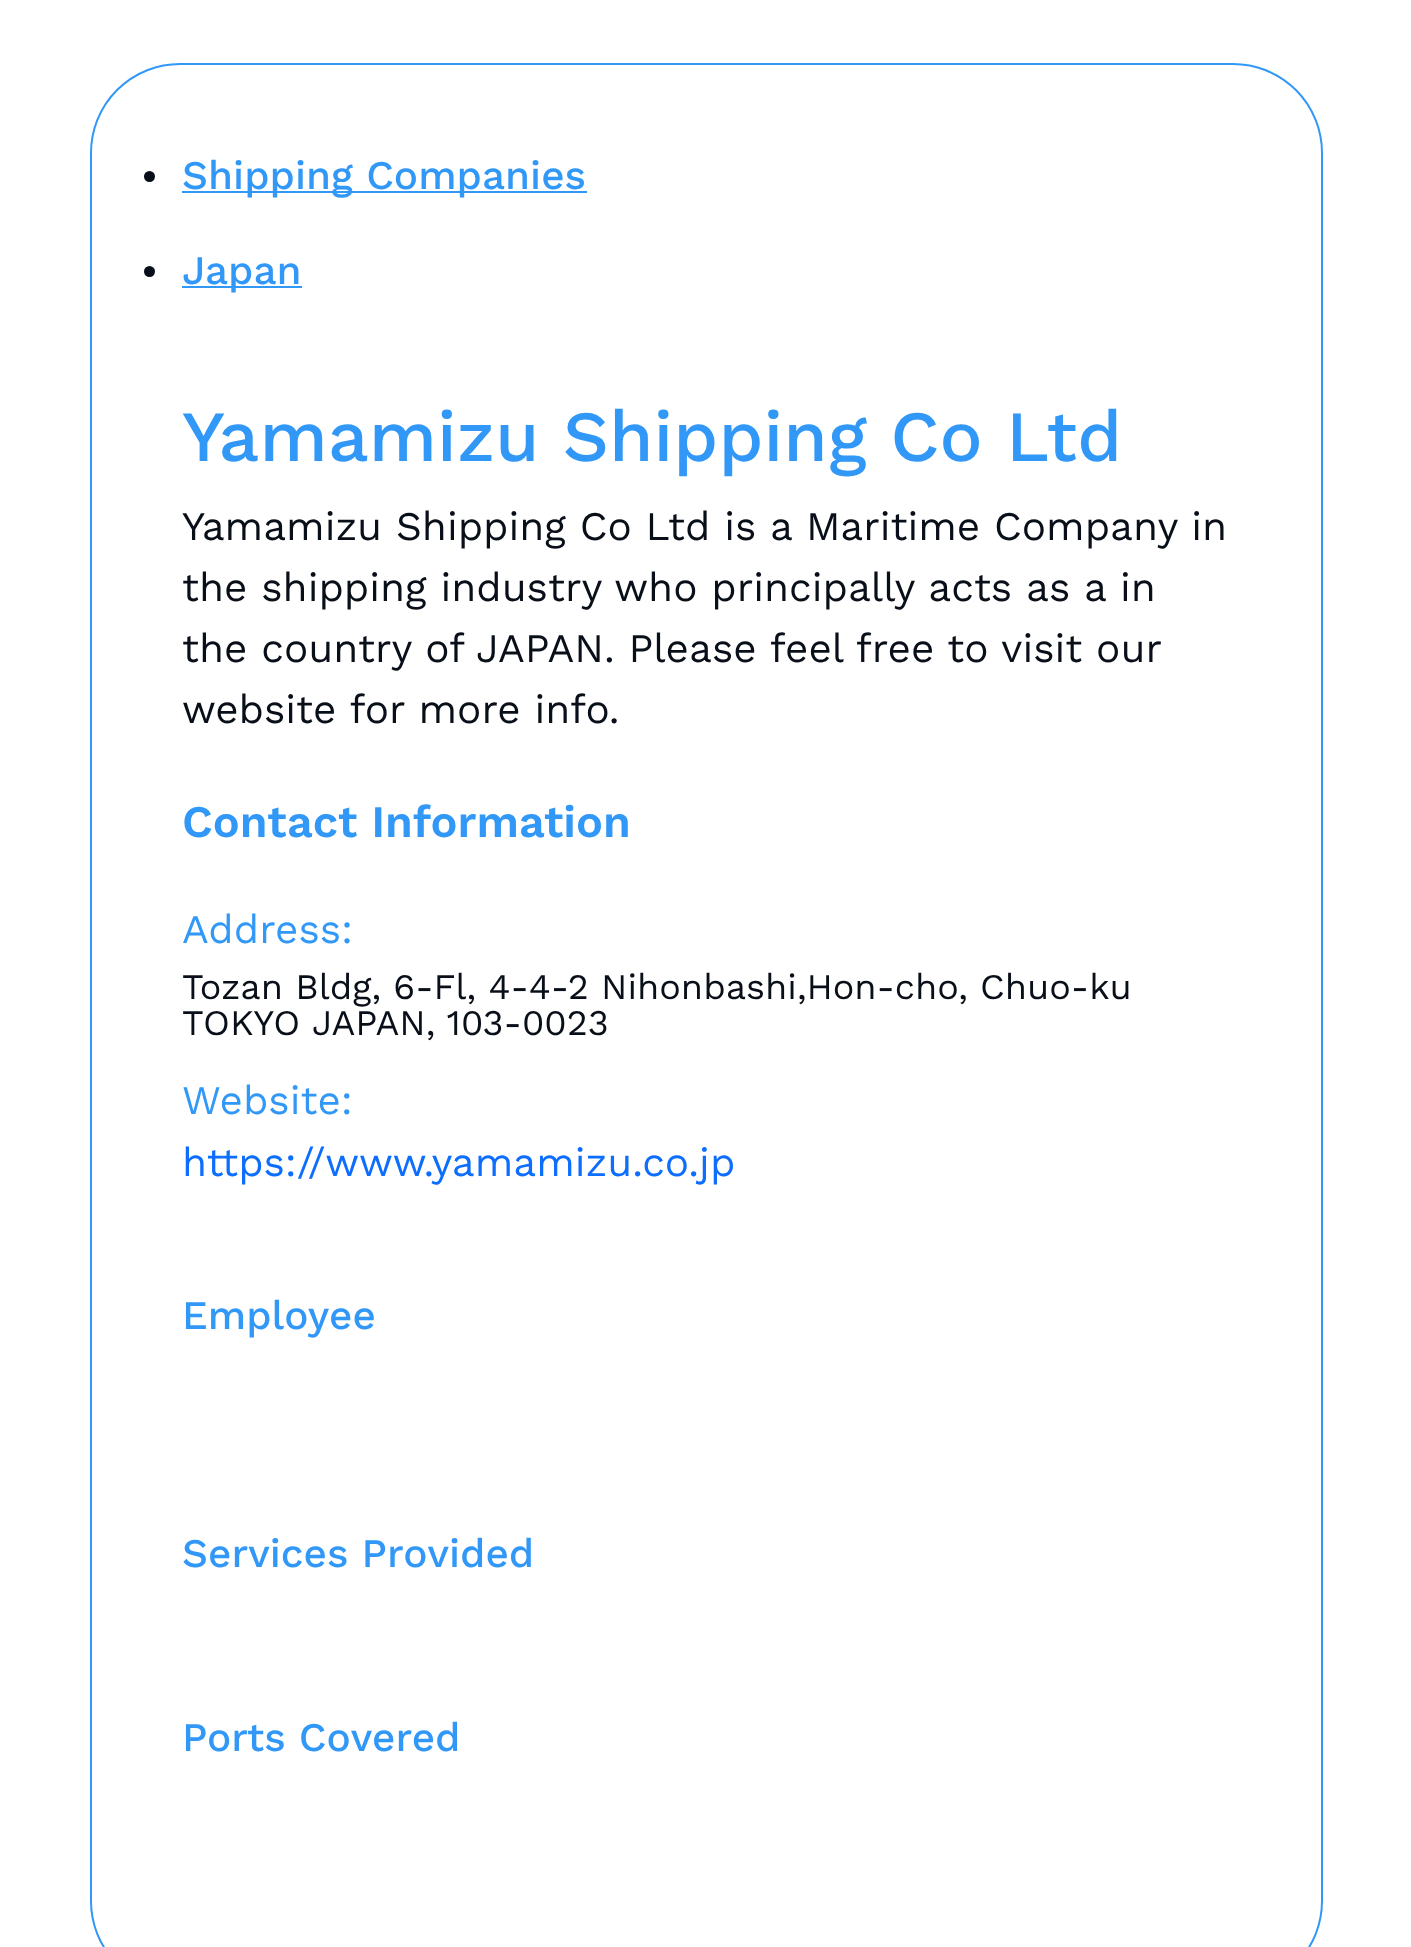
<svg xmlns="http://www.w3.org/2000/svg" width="1411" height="1947">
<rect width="100%" height="100%" fill="#fff"/>
<rect x="91" y="64" width="1231" height="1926" rx="89" fill="none" stroke="#3198f7" stroke-width="2"/>
<circle cx="149.5" cy="176.5" r="5.5" fill="#090f19"/>
<rect x="182" y="191" width="405" height="2" fill="#3198f7"/>
<text x="182" y="189" style="font-family:Work Sans;font-size:40.5px;font-weight:500;fill:#3198f7">Shipping Companies</text>
<circle cx="149.5" cy="271.5" r="5.5" fill="#090f19"/>
<rect x="182" y="286" width="120" height="2" fill="#3198f7"/>
<text x="182" y="284" style="font-family:Work Sans;font-size:40.5px;font-weight:500;fill:#3198f7">Japan</text>
<text x="182" y="461" style="font-family:Work Sans;font-size:72px;font-weight:500;fill:#3198f7">Yamamizu Shipping Co Ltd</text>
<text x="182" y="540" style="font-family:Work Sans;font-size:40.5px;fill:#090f19">Yamamizu Shipping Co Ltd is a Maritime Company in</text>
<text x="182" y="601" style="font-family:Work Sans;font-size:40.5px;fill:#090f19">the shipping industry who principally acts as a in</text>
<text x="182" y="662" style="font-family:Work Sans;font-size:40.5px;fill:#090f19">the country of</text>
<text x="476" y="662" style="font-family:Work Sans;font-size:40.5px;fill:#090f19">JAPAN. Please feel free to visit our</text>
<text x="182" y="723" style="font-family:Work Sans;font-size:40.5px;fill:#090f19">website for more info.</text>
<text x="182" y="837" style="font-family:Work Sans;font-size:45px;font-weight:600;fill:#3198f7">Contact Information</text>
<text x="182" y="943" style="font-family:Work Sans;font-size:40.5px;fill:#3198f7">Address:</text>
<text x="182" y="999" style="font-family:Work Sans;font-size:36px;fill:#090f19">Tozan Bldg, 6-Fl, 4-4-2 Nihonbashi,Hon-cho, Chuo-ku</text>
<text x="182" y="1035" style="font-family:Work Sans;font-size:36px;fill:#090f19">TOKYO</text>
<text x="312" y="1035" style="font-family:Work Sans;font-size:36px;fill:#090f19">JAPAN, 103-0023</text>
<text x="182" y="1114" style="font-family:Work Sans;font-size:40.5px;fill:#3198f7">Website:</text>
<text x="182" y="1176" style="font-family:Work Sans;font-size:40.5px;fill:#0d6efd">https://www.yamamizu.co.jp</text>
<text x="182" y="1329" style="font-family:Work Sans;font-size:40.5px;font-weight:500;fill:#3198f7">Employee</text>
<text x="182" y="1567" style="font-family:Work Sans;font-size:40.5px;font-weight:500;fill:#3198f7">Services Provided</text>
<text x="182" y="1751" style="font-family:Work Sans;font-size:40.5px;font-weight:500;fill:#3198f7">Ports Covered</text>
</svg>
